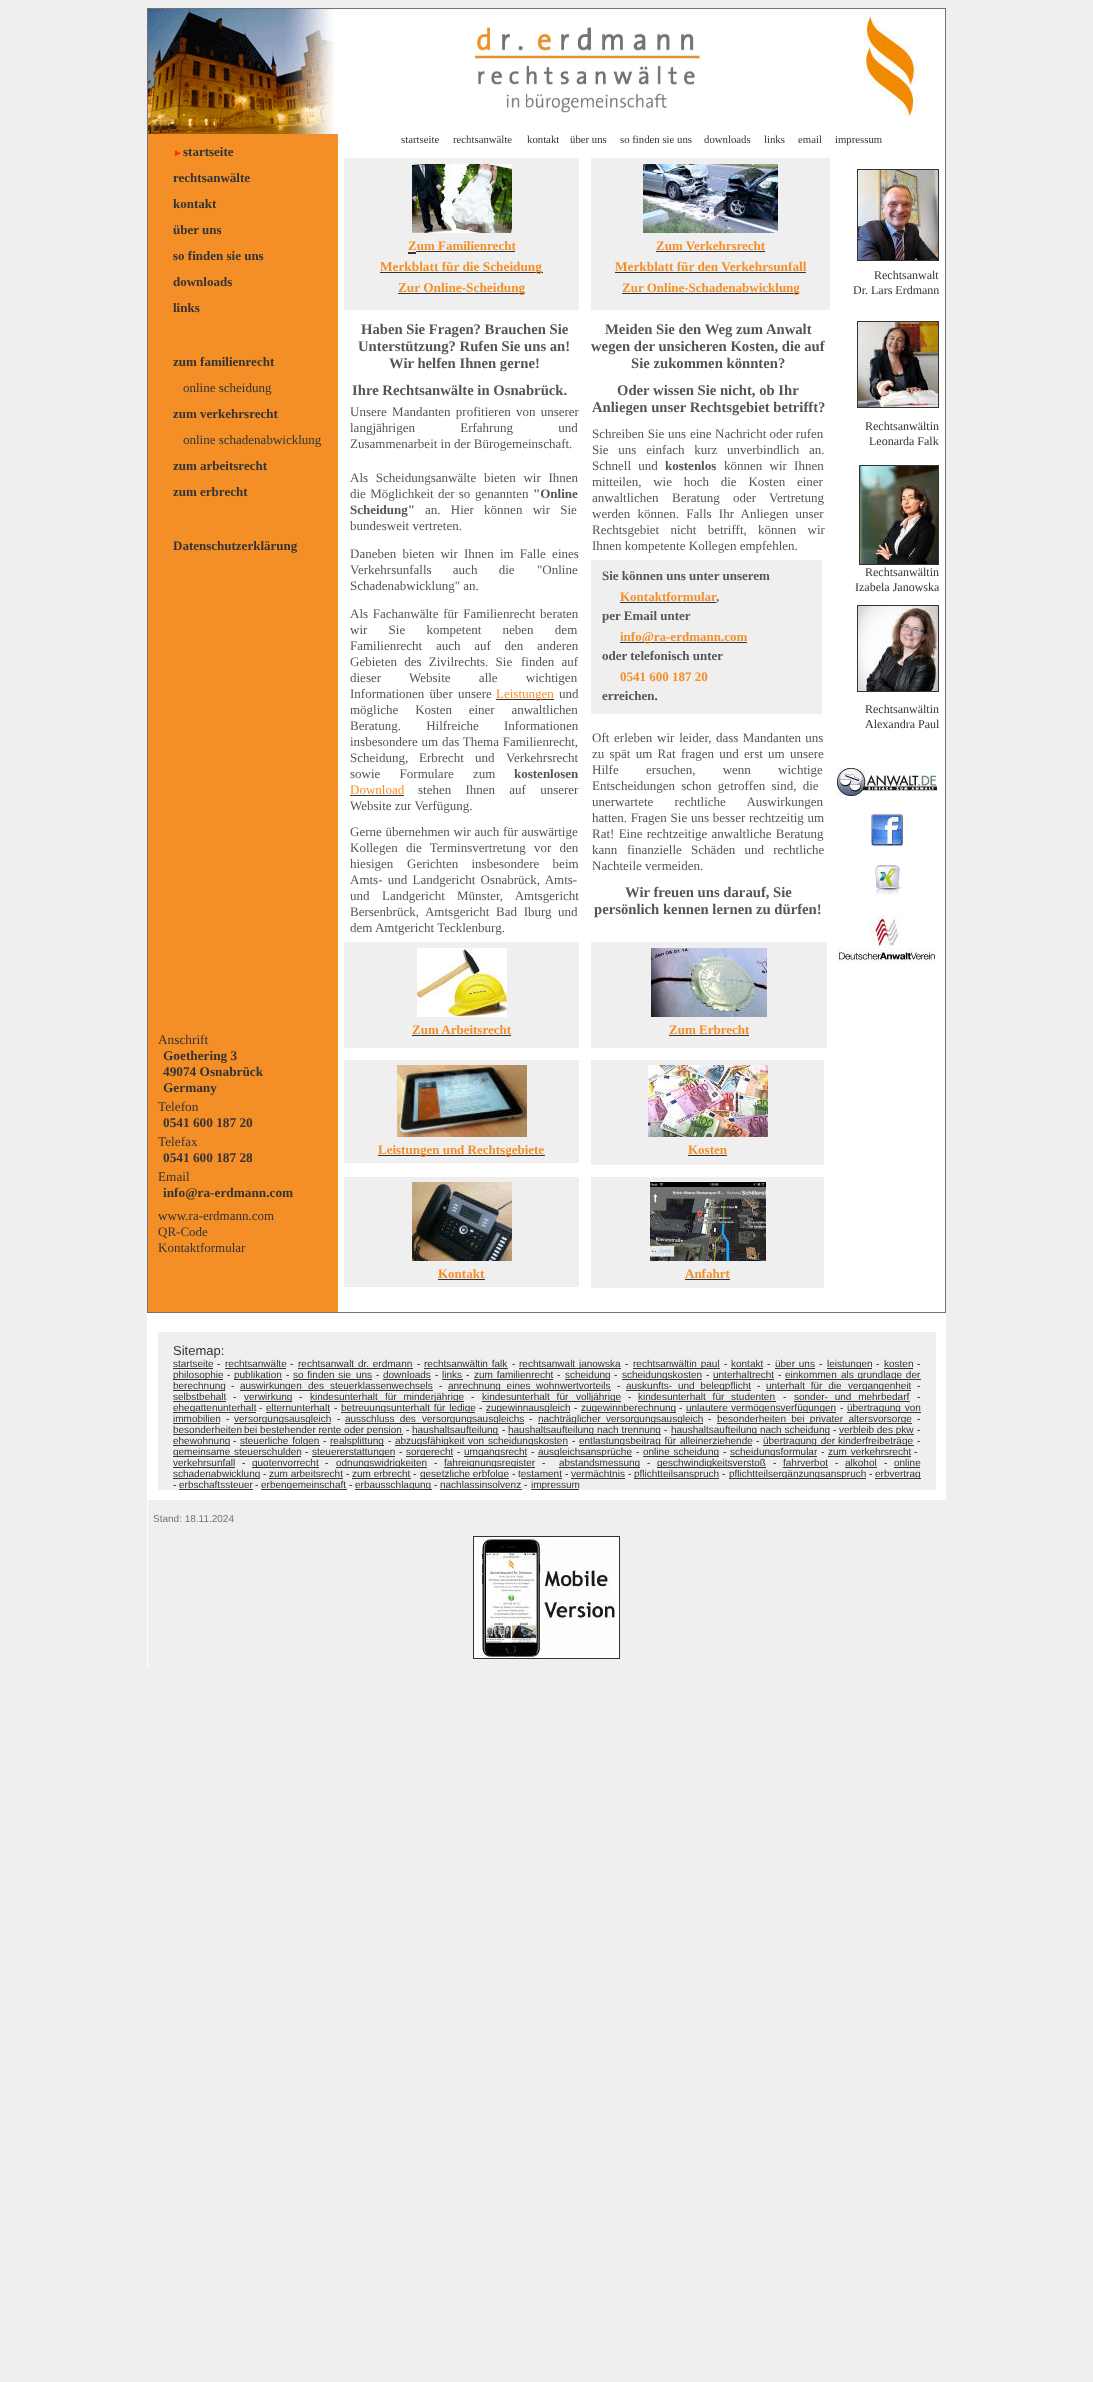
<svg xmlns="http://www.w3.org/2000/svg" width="1093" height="2382">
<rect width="100%" height="100%" fill="#efefef"/>
<rect x="147" y="9" width="799" height="1660" fill="#fff"/>
<rect x="147" y="8" width="799" height="1" fill="#727272"/>
<rect x="945" y="122" width="1" height="1191" fill="#727272"/>
<rect x="945" y="8" width="1" height="115" fill="#727272"/>
<image x="863" y="12" width="55" height="104" href="media/1.png"/>
<rect x="147" y="1312" width="799" height="1" fill="#727272"/>
<rect x="147" y="134" width="1" height="1179" fill="#727272"/>
<rect x="147" y="8" width="1" height="127" fill="#727272"/>
<image x="148" y="9" width="187" height="125" href="media/2.png"/>
<image x="475" y="27" width="226" height="86" href="media/3.png"/>
<text x="401" y="143" style="font-family:Liberation Serif;font-size:10.75px;fill:#333">startseite</text>
<text x="453" y="143" style="font-family:Liberation Serif;font-size:10.75px;fill:#333">rechtsanwälte</text>
<text x="527" y="143" style="font-family:Liberation Serif;font-size:10.75px;fill:#333">kontakt</text>
<text x="570" y="143" style="font-family:Liberation Serif;font-size:10.75px;fill:#333">über uns</text>
<text x="620" y="143" style="font-family:Liberation Serif;font-size:10.75px;fill:#333">so finden sie uns</text>
<text x="704" y="143" style="font-family:Liberation Serif;font-size:10.75px;fill:#333">downloads</text>
<text x="764" y="143" style="font-family:Liberation Serif;font-size:10.75px;fill:#333">links</text>
<text x="798" y="143" style="font-family:Liberation Serif;font-size:10.75px;fill:#333">email</text>
<text x="835" y="143" style="font-family:Liberation Serif;font-size:10.75px;fill:#333">impressum</text>
<rect x="148" y="134" width="190" height="1178" fill="#f48f28"/>
<text x="173" y="156" style="font-family:Liberation Sans;font-size:10px;font-weight:bold;fill:#f30">►</text>
<text x="183" y="156" style="font-family:Liberation Serif;font-size:13px;font-weight:bold;fill:#333">startseite</text>
<text x="173" y="182" style="font-family:Liberation Serif;font-size:13px;font-weight:bold;fill:#333">rechtsanwälte</text>
<text x="173" y="208" style="font-family:Liberation Serif;font-size:13px;font-weight:bold;fill:#333">kontakt</text>
<text x="173" y="234" style="font-family:Liberation Serif;font-size:13px;font-weight:bold;fill:#333">über uns</text>
<text x="173" y="260" style="font-family:Liberation Serif;font-size:13px;font-weight:bold;fill:#333">so finden sie uns</text>
<text x="173" y="286" style="font-family:Liberation Serif;font-size:13px;font-weight:bold;fill:#333">downloads</text>
<text x="173" y="312" style="font-family:Liberation Serif;font-size:13px;font-weight:bold;fill:#333">links</text>
<text x="173" y="366" style="font-family:Liberation Serif;font-size:13px;font-weight:bold;fill:#333">zum familienrecht</text>
<text x="183" y="392" style="font-family:Liberation Serif;font-size:13px;fill:#333">online scheidung</text>
<text x="173" y="418" style="font-family:Liberation Serif;font-size:13px;font-weight:bold;fill:#333">zum verkehrsrecht</text>
<text x="183" y="444" style="font-family:Liberation Serif;font-size:13px;fill:#333">online schadenabwicklung</text>
<text x="173" y="470" style="font-family:Liberation Serif;font-size:13px;font-weight:bold;fill:#333">zum arbeitsrecht</text>
<text x="173" y="496" style="font-family:Liberation Serif;font-size:13px;font-weight:bold;fill:#333">zum erbrecht</text>
<text x="173" y="550" style="font-family:Liberation Serif;font-size:13px;font-weight:bold;fill:#333">Datenschutzerklärung</text>
<text x="158" y="1044" style="font-family:Liberation Serif;font-size:13.3px;fill:#333">Anschrift</text>
<text x="163" y="1060" style="font-family:Liberation Serif;font-size:13.3px;font-weight:bold;fill:#333">Goethering 3</text>
<text x="163" y="1076" style="font-family:Liberation Serif;font-size:13.3px;font-weight:bold;fill:#333">49074 Osnabrück</text>
<text x="163" y="1092" style="font-family:Liberation Serif;font-size:13.3px;font-weight:bold;fill:#333">Germany</text>
<text x="158" y="1111" style="font-family:Liberation Serif;font-size:13.3px;fill:#333">Telefon</text>
<text x="163" y="1127" style="font-family:Liberation Serif;font-size:13.3px;font-weight:bold;fill:#333">0541 600 187 20</text>
<text x="158" y="1146" style="font-family:Liberation Serif;font-size:13.3px;fill:#333">Telefax</text>
<text x="163" y="1162" style="font-family:Liberation Serif;font-size:13.3px;font-weight:bold;fill:#333">0541 600 187 28</text>
<text x="158" y="1181" style="font-family:Liberation Serif;font-size:13.3px;fill:#333">Email</text>
<text x="163" y="1197" style="font-family:Liberation Serif;font-size:13.3px;font-weight:bold;fill:#333">info@ra-erdmann.com</text>
<text x="158" y="1220" style="font-family:Liberation Serif;font-size:13px;fill:#333">www.ra-erdmann.com</text>
<text x="158" y="1236" style="font-family:Liberation Serif;font-size:13px;fill:#333">QR-Code</text>
<text x="158" y="1252" style="font-family:Liberation Serif;font-size:13px;fill:#333">Kontaktformular</text>
<rect x="344" y="158" width="235" height="152" fill="#efefef"/>
<image x="412" y="164" width="100" height="69" href="media/4.png"/>
<text x="408" y="250" style="font-family:Liberation Serif;font-size:13px;font-weight:bold;fill:#f48f28">Zum Familienrecht</text>
<rect x="408" y="252" width="8" height="2" fill="#333"/>
<rect x="416" y="251" width="99" height="1" fill="#333"/>
<rect x="380" y="272" width="163" height="1" fill="#333"/>
<text x="380" y="271" style="font-family:Liberation Serif;font-size:13.3px;font-weight:bold;fill:#f48f28">Merkblatt für die Scheidung</text>
<rect x="398" y="293" width="127" height="1" fill="#333"/>
<text x="398" y="292" style="font-family:Liberation Serif;font-size:13.3px;font-weight:bold;fill:#f48f28">Zur Online-Scheidung</text>
<rect x="591" y="158" width="239" height="152" fill="#efefef"/>
<image x="643" y="164" width="135" height="69" href="media/5.png"/>
<text x="656" y="250" style="font-family:Liberation Serif;font-size:13px;font-weight:bold;fill:#f48f28">Zum Verkehrsrecht</text>
<rect x="656" y="251" width="109" height="1" fill="#333"/>
<text x="615" y="271" style="font-family:Liberation Serif;font-size:13.3px;font-weight:bold;fill:#f48f28">Merkblatt für den Verkehrsunfall</text>
<rect x="615" y="272" width="191" height="1" fill="#333"/>
<rect x="622" y="293" width="177" height="1" fill="#333"/>
<text x="622" y="292" style="font-family:Liberation Serif;font-size:13px;font-weight:bold;fill:#f48f28">Zur Online-Schadenabwicklung</text>
<rect x="857.5" y="169.5" width="81" height="91" fill="none" stroke="#333"/>
<image x="858" y="170" width="80" height="90" href="media/6.png"/>
<text x="874" y="279" style="font-family:Liberation Serif;font-size:12px;fill:#333">Rechtsanwalt</text>
<text x="853" y="294" style="font-family:Liberation Serif;font-size:12px;fill:#333">Dr. Lars Erdmann</text>
<rect x="857.5" y="321.5" width="81" height="86" fill="none" stroke="#333"/>
<image x="858" y="322" width="80" height="85" href="media/7.png"/>
<text x="865" y="430" style="font-family:Liberation Serif;font-size:12px;fill:#333">Rechtsanwältin</text>
<text x="869" y="445" style="font-family:Liberation Serif;font-size:12px;fill:#333">Leonarda Falk</text>
<rect x="859.5" y="465.5" width="79" height="99" fill="none" stroke="#333"/>
<image x="860" y="466" width="78" height="98" href="media/8.png"/>
<text x="865" y="576" style="font-family:Liberation Serif;font-size:12px;fill:#333">Rechtsanwältin</text>
<text x="855" y="591" style="font-family:Liberation Serif;font-size:12px;fill:#333">Izabela Janowska</text>
<rect x="857.5" y="605.5" width="81" height="86" fill="none" stroke="#333"/>
<image x="858" y="606" width="80" height="85" href="media/9.png"/>
<text x="865" y="713" style="font-family:Liberation Serif;font-size:12px;fill:#333">Rechtsanwältin</text>
<text x="865" y="728" style="font-family:Liberation Serif;font-size:12px;fill:#333">Alexandra Paul</text>
<image x="837" y="768" width="100" height="28" href="media/10.png"/>
<image x="871" y="814" width="32" height="32" href="media/11.png"/>
<image x="875" y="865" width="27" height="30" href="media/12.png"/>
<image x="837" y="915" width="100" height="48" href="media/13.png"/>
<text x="361" y="334" style="font-family:Liberation Serif;font-size:14.7px;font-weight:bold;fill:#555">Haben Sie Fragen? Brauchen Sie</text>
<text x="358" y="351" style="font-family:Liberation Serif;font-size:14.7px;font-weight:bold;fill:#555">Unterstützung? Rufen Sie uns an!</text>
<text x="389" y="368" style="font-family:Liberation Serif;font-size:14.7px;font-weight:bold;fill:#555">Wir helfen Ihnen gerne!</text>
<text x="352" y="395" style="font-family:Liberation Serif;font-size:14.7px;font-weight:bold;fill:#555">Ihre Rechtsanwälte in Osnabrück.</text>
<text x="350" y="416" word-spacing="2" style="font-family:Liberation Serif;font-size:13px;fill:#555">Unsere Mandanten profitieren von unserer</text>
<text x="350" y="432" word-spacing="42" style="font-family:Liberation Serif;font-size:13px;fill:#555">langjährigen Erfahrung und</text>
<text x="350" y="448" style="font-family:Liberation Serif;font-size:13px;fill:#555">Zusammenarbeit in der Bürogemeinschaft.</text>
<text x="350" y="482" word-spacing="4.5" style="font-family:Liberation Serif;font-size:13px;fill:#555">Als Scheidungsanwälte bieten wir Ihnen</text>
<text x="350" y="498" word-spacing="1" style="font-family:Liberation Serif;font-size:13px;fill:#555">die Möglichkeit der so</text>
<text x="475" y="498" style="font-family:Liberation Serif;font-size:13px;fill:#555">genannten</text>
<text x="533" y="498" style="font-family:Liberation Serif;font-size:13px;font-weight:bold;fill:#555">"Online</text>
<text x="350" y="514" style="font-family:Liberation Serif;font-size:13px;font-weight:bold;fill:#555">Scheidung"</text>
<text x="425" y="514" word-spacing="7" style="font-family:Liberation Serif;font-size:13px;fill:#555">an. Hier können wir Sie</text>
<text x="350" y="530" style="font-family:Liberation Serif;font-size:13px;fill:#555">bundesweit vertreten.</text>
<text x="350" y="558" word-spacing="3" style="font-family:Liberation Serif;font-size:13px;fill:#555">Daneben bieten wir Ihnen im Falle eines</text>
<text x="350" y="574" word-spacing="18" style="font-family:Liberation Serif;font-size:13px;fill:#555">Verkehrsunfalls auch die</text>
<text x="537" y="574" style="font-family:Liberation Serif;font-size:13px;fill:#555">"Online</text>
<text x="350" y="590" style="font-family:Liberation Serif;font-size:13px;fill:#555">Schadenabwicklung" an.</text>
<text x="350" y="618" word-spacing="1.5" style="font-family:Liberation Serif;font-size:13px;fill:#555">Als Fachanwälte für Familienrecht beraten</text>
<text x="350" y="634" word-spacing="18" style="font-family:Liberation Serif;font-size:13px;fill:#555">wir Sie kompetent neben dem</text>
<text x="350" y="650" word-spacing="10.5" style="font-family:Liberation Serif;font-size:13px;fill:#555">Familienrecht auch auf den anderen</text>
<text x="350" y="666" word-spacing="4" style="font-family:Liberation Serif;font-size:13px;fill:#555">Gebieten des Zivilrechts. Sie</text>
<text x="521" y="666" word-spacing="4" style="font-family:Liberation Serif;font-size:13px;fill:#555">finden auf</text>
<text x="350" y="682" word-spacing="25" style="font-family:Liberation Serif;font-size:13px;fill:#555">dieser Website alle wichtigen</text>
<text x="350" y="698" word-spacing="2" style="font-family:Liberation Serif;font-size:13px;fill:#555">Informationen über unsere</text>
<rect x="496" y="699" width="58" height="1" fill="#333"/>
<text x="496" y="698" style="font-family:Liberation Serif;font-size:13px;fill:#f48f28">Leistungen</text>
<text x="559" y="698" style="font-family:Liberation Serif;font-size:13px;fill:#555">und</text>
<text x="350" y="714" word-spacing="13.5" style="font-family:Liberation Serif;font-size:13px;fill:#555">mögliche Kosten einer anwaltlichen</text>
<text x="350" y="730" word-spacing="22" style="font-family:Liberation Serif;font-size:13px;fill:#555">Beratung. Hilfreiche</text>
<text x="504" y="730" style="font-family:Liberation Serif;font-size:13px;fill:#555">Informationen</text>
<text x="350" y="746" word-spacing="0.5" style="font-family:Liberation Serif;font-size:13px;fill:#555">insbesondere um das Thema Familienrecht,</text>
<text x="350" y="762" style="font-family:Liberation Serif;font-size:13px;fill:#555">Scheidung,</text>
<text x="419" y="762" style="font-family:Liberation Serif;font-size:13px;fill:#555">Erbrecht</text>
<text x="475" y="762" style="font-family:Liberation Serif;font-size:13px;fill:#555">und</text>
<text x="506" y="762" style="font-family:Liberation Serif;font-size:13px;fill:#555">Verkehrsrecht</text>
<text x="350" y="778" word-spacing="16" style="font-family:Liberation Serif;font-size:13px;fill:#555">sowie Formulare zum</text>
<text x="514" y="778" style="font-family:Liberation Serif;font-size:13px;font-weight:bold;fill:#555">kostenlosen</text>
<text x="350" y="794" style="font-family:Liberation Serif;font-size:13px;fill:#f48f28">Download</text>
<rect x="350" y="795" width="54" height="1" fill="#333"/>
<text x="418" y="794" word-spacing="11" style="font-family:Liberation Serif;font-size:13px;fill:#555">stehen Ihnen auf unserer</text>
<text x="350" y="810" style="font-family:Liberation Serif;font-size:13px;fill:#555">Website zur Verfügung.</text>
<text x="350" y="836" word-spacing="0.5" style="font-family:Liberation Serif;font-size:13px;fill:#555">Gerne übernehmen wir auch</text>
<text x="503" y="836" style="font-family:Liberation Serif;font-size:13px;fill:#555">für auswärtige</text>
<text x="350" y="852" word-spacing="5" style="font-family:Liberation Serif;font-size:13px;fill:#555">Kollegen die Terminsvertretung vor den</text>
<text x="350" y="868" style="font-family:Liberation Serif;font-size:13px;fill:#555">hiesigen</text>
<text x="407" y="868" word-spacing="10" style="font-family:Liberation Serif;font-size:13px;fill:#555">Gerichten insbesondere beim</text>
<text x="350" y="884" word-spacing="2" style="font-family:Liberation Serif;font-size:13px;fill:#555">Amts- und Landgericht Osnabrück, Amts-</text>
<text x="350" y="900" style="font-family:Liberation Serif;font-size:13px;fill:#555">und</text>
<text x="382" y="900" word-spacing="9" style="font-family:Liberation Serif;font-size:13px;fill:#555">Landgericht Münster, Amtsgericht</text>
<text x="350" y="916" word-spacing="3.5" style="font-family:Liberation Serif;font-size:13px;fill:#555">Bersenbrück, Amtsgericht Bad Iburg</text>
<text x="558" y="916" style="font-family:Liberation Serif;font-size:13px;fill:#555">und</text>
<text x="350" y="932" style="font-family:Liberation Serif;font-size:13px;fill:#555">dem Amtgericht Tecklenburg.</text>
<text x="605" y="334" style="font-family:Liberation Serif;font-size:14.7px;font-weight:bold;fill:#555">Meiden Sie den Weg zum Anwalt</text>
<text x="591" y="351" style="font-family:Liberation Serif;font-size:14.7px;font-weight:bold;fill:#555">wegen der unsicheren Kosten, die auf</text>
<text x="631" y="368" style="font-family:Liberation Serif;font-size:14.7px;font-weight:bold;fill:#555">Sie zukommen könnten?</text>
<text x="617" y="395" style="font-family:Liberation Serif;font-size:14.7px;font-weight:bold;fill:#555">Oder wissen Sie nicht, ob Ihr</text>
<text x="592" y="412" style="font-family:Liberation Serif;font-size:14.7px;font-weight:bold;fill:#555">Anliegen unser Rechtsgebiet betrifft?</text>
<text x="592" y="438" word-spacing="0.5" style="font-family:Liberation Serif;font-size:13px;fill:#555">Schreiben Sie uns eine</text>
<text x="715" y="438" style="font-family:Liberation Serif;font-size:13px;fill:#555">Nachricht oder rufen</text>
<text x="592" y="454" word-spacing="6.5" style="font-family:Liberation Serif;font-size:13px;fill:#555">Sie uns einfach kurz unverbindlich an.</text>
<text x="592" y="470" word-spacing="4" style="font-family:Liberation Serif;font-size:13px;fill:#555">Schnell und</text>
<text x="665" y="470" style="font-family:Liberation Serif;font-size:13px;font-weight:bold;fill:#555">kostenlos</text>
<text x="724" y="470" word-spacing="4" style="font-family:Liberation Serif;font-size:13px;fill:#555">können wir Ihnen</text>
<text x="592" y="486" word-spacing="8.5" style="font-family:Liberation Serif;font-size:13px;fill:#555">mitteilen, wie hoch die Kosten einer</text>
<text x="592" y="502" style="font-family:Liberation Serif;font-size:13px;fill:#555">anwaltlichen</text>
<text x="672" y="502" word-spacing="10" style="font-family:Liberation Serif;font-size:13px;fill:#555">Beratung oder Vertretung</text>
<text x="592" y="518" word-spacing="4" style="font-family:Liberation Serif;font-size:13px;fill:#555">werden können. Falls Ihr Anliegen unser</text>
<text x="592" y="534" word-spacing="8" style="font-family:Liberation Serif;font-size:13px;fill:#555">Rechtsgebiet nicht betrifft, können wir</text>
<text x="592" y="550" style="font-family:Liberation Serif;font-size:13px;fill:#555">Ihnen kompetente Kollegen empfehlen.</text>
<rect x="591" y="560" width="231" height="154" fill="#efefef"/>
<text x="602" y="580" style="font-family:Liberation Serif;font-size:13px;font-weight:bold;fill:#555">Sie können uns unter unserem</text>
<text x="620" y="601" style="font-family:Liberation Serif;font-size:13px;font-weight:bold;fill:#f48f28">Kontaktformular</text>
<rect x="620" y="602" width="96" height="1" fill="#333"/>
<text x="716" y="601" style="font-family:Liberation Serif;font-size:13px;font-weight:bold;fill:#727272">,</text>
<text x="602" y="620" style="font-family:Liberation Serif;font-size:13px;font-weight:bold;fill:#555">per Email unter</text>
<rect x="620" y="642" width="127" height="1" fill="#333"/>
<text x="620" y="641" style="font-family:Liberation Serif;font-size:13px;font-weight:bold;fill:#f48f28">info@ra-erdmann.com</text>
<text x="602" y="660" style="font-family:Liberation Serif;font-size:13px;font-weight:bold;fill:#555">oder telefonisch unter</text>
<text x="620" y="681" style="font-family:Liberation Serif;font-size:13px;font-weight:bold;fill:#f48f28">0541 600 187 20</text>
<text x="602" y="700" style="font-family:Liberation Serif;font-size:13px;font-weight:bold;fill:#555">erreichen.</text>
<text x="592" y="742" word-spacing="1.5" style="font-family:Liberation Serif;font-size:13px;fill:#555">Oft erleben wir leider,</text>
<text x="716" y="742" word-spacing="1" style="font-family:Liberation Serif;font-size:13px;fill:#555">dass Mandanten uns</text>
<text x="592" y="758" word-spacing="2" style="font-family:Liberation Serif;font-size:13px;fill:#555">zu spät um Rat fragen und erst um unsere</text>
<text x="592" y="774" style="font-family:Liberation Serif;font-size:13px;fill:#555">Hilfe</text>
<text x="646" y="774" word-spacing="24" style="font-family:Liberation Serif;font-size:13px;fill:#555">ersuchen, wenn wichtige</text>
<text x="592" y="790" word-spacing="3" style="font-family:Liberation Serif;font-size:13px;fill:#555">Entscheidungen schon getroffen sind, die</text>
<text x="592" y="806" word-spacing="18" style="font-family:Liberation Serif;font-size:13px;fill:#555">unerwartete rechtliche Auswirkungen</text>
<text x="592" y="822" word-spacing="0.5" style="font-family:Liberation Serif;font-size:13px;fill:#555">hatten. Fragen Sie uns besser</text>
<text x="749" y="822" word-spacing="0.5" style="font-family:Liberation Serif;font-size:13px;fill:#555">rechtzeitig um</text>
<text x="592" y="838" word-spacing="1" style="font-family:Liberation Serif;font-size:13px;fill:#555">Rat! Eine rechtzeitige anwaltliche Beratung</text>
<text x="592" y="854" style="font-family:Liberation Serif;font-size:13px;fill:#555">kann</text>
<text x="627" y="854" word-spacing="6" style="font-family:Liberation Serif;font-size:13px;fill:#555">finanzielle Schäden und rechtliche</text>
<text x="592" y="870" style="font-family:Liberation Serif;font-size:13px;fill:#555">Nachteile vermeiden.</text>
<text x="625" y="897" style="font-family:Liberation Serif;font-size:14.7px;font-weight:bold;fill:#555">Wir freuen uns darauf, Sie</text>
<text x="594" y="914" style="font-family:Liberation Serif;font-size:14.7px;font-weight:bold;fill:#555">persönlich kennen lernen zu dürfen!</text>
<rect x="344" y="942" width="235" height="106" fill="#efefef"/>
<image x="417" y="948" width="90" height="69" href="media/14.png"/>
<text x="412" y="1034" style="font-family:Liberation Serif;font-size:13px;font-weight:bold;fill:#f48f28">Zum Arbeitsrecht</text>
<rect x="412" y="1035" width="99" height="1" fill="#333"/>
<rect x="591" y="942" width="236" height="106" fill="#efefef"/>
<image x="651" y="948" width="116" height="69" href="media/15.png"/>
<text x="669" y="1034" style="font-family:Liberation Serif;font-size:13px;font-weight:bold;fill:#f48f28">Zum Erbrecht</text>
<rect x="669" y="1035" width="80" height="1" fill="#333"/>
<rect x="344" y="1060" width="235" height="103" fill="#efefef"/>
<image x="397" y="1065" width="130" height="72" href="media/16.png"/>
<rect x="378" y="1155" width="167" height="1" fill="#333"/>
<text x="378" y="1154" style="font-family:Liberation Serif;font-size:13px;font-weight:bold;fill:#f48f28">Leistungen und Rechtsgebiete</text>
<rect x="591" y="1060" width="233" height="105" fill="#efefef"/>
<image x="648" y="1065" width="120" height="72" href="media/17.png"/>
<text x="688" y="1154" style="font-family:Liberation Serif;font-size:13px;font-weight:bold;fill:#f48f28">Kosten</text>
<rect x="688" y="1155" width="39" height="1" fill="#333"/>
<rect x="344" y="1177" width="235" height="110" fill="#efefef"/>
<image x="412" y="1182" width="100" height="79" href="media/18.png"/>
<text x="438" y="1278" style="font-family:Liberation Serif;font-size:13px;font-weight:bold;fill:#f48f28">Kontakt</text>
<rect x="438" y="1279" width="47" height="1" fill="#333"/>
<rect x="591" y="1177" width="233" height="111" fill="#efefef"/>
<image x="650" y="1182" width="116" height="79" href="media/19.png"/>
<text x="685" y="1278" style="font-family:Liberation Serif;font-size:13px;font-weight:bold;fill:#f48f28">Anfahrt</text>
<rect x="685" y="1279" width="45" height="1" fill="#333"/>
<rect x="158" y="1332" width="778" height="158" fill="#efefef"/>
<text x="173" y="1355" style="font-family:Liberation Sans;font-size:13px;fill:#333">Sitemap:</text>
<text x="173" y="1367" style="font-family:Liberation Sans;font-size:10px;fill:#333">startseite</text>
<rect x="173" y="1368" width="40" height="1" fill="#333"/>
<text x="217" y="1367" style="font-family:Liberation Sans;font-size:10px;fill:#000">-</text>
<text x="225" y="1367" style="font-family:Liberation Sans;font-size:10px;fill:#333">rechtsanwälte</text>
<rect x="225" y="1368" width="61" height="1" fill="#333"/>
<text x="290" y="1367" style="font-family:Liberation Sans;font-size:10px;fill:#000">-</text>
<text x="298" y="1367" word-spacing="1" style="font-family:Liberation Sans;font-size:10px;fill:#333">rechtsanwalt dr. erdmann</text>
<rect x="298" y="1368" width="115" height="1" fill="#333"/>
<text x="417" y="1367" style="font-family:Liberation Sans;font-size:10px;fill:#000">-</text>
<text x="424" y="1367" word-spacing="1" style="font-family:Liberation Sans;font-size:10px;fill:#333">rechtsanwältin falk</text>
<rect x="424" y="1368" width="84" height="1" fill="#333"/>
<text x="512" y="1367" style="font-family:Liberation Sans;font-size:10px;fill:#000">-</text>
<rect x="519" y="1368" width="102" height="1" fill="#333"/>
<text x="519" y="1367" word-spacing="1" style="font-family:Liberation Sans;font-size:10px;fill:#333">rechtsanwalt janowska</text>
<text x="625" y="1367" style="font-family:Liberation Sans;font-size:10px;fill:#000">-</text>
<rect x="633" y="1368" width="87" height="1" fill="#333"/>
<text x="633" y="1367" word-spacing="1" style="font-family:Liberation Sans;font-size:10px;fill:#333">rechtsanwältin paul</text>
<text x="724" y="1367" style="font-family:Liberation Sans;font-size:10px;fill:#000">-</text>
<text x="731" y="1367" style="font-family:Liberation Sans;font-size:10px;fill:#333">kontakt</text>
<rect x="731" y="1368" width="32" height="1" fill="#333"/>
<text x="767" y="1367" style="font-family:Liberation Sans;font-size:10px;fill:#000">-</text>
<text x="775" y="1367" word-spacing="1" style="font-family:Liberation Sans;font-size:10px;fill:#333">über uns</text>
<rect x="775" y="1368" width="40" height="1" fill="#333"/>
<text x="819" y="1367" style="font-family:Liberation Sans;font-size:10px;fill:#000">-</text>
<rect x="827" y="1368" width="45" height="1" fill="#333"/>
<text x="827" y="1367" style="font-family:Liberation Sans;font-size:10px;fill:#333">leistungen</text>
<text x="876" y="1367" style="font-family:Liberation Sans;font-size:10px;fill:#000">-</text>
<text x="884" y="1367" style="font-family:Liberation Sans;font-size:10px;fill:#333">kosten</text>
<rect x="884" y="1368" width="29" height="1" fill="#333"/>
<text x="917" y="1367" style="font-family:Liberation Sans;font-size:10px;fill:#000">-</text>
<rect x="173" y="1379" width="50" height="1" fill="#333"/>
<text x="173" y="1378" style="font-family:Liberation Sans;font-size:10px;fill:#333">philosophie</text>
<text x="227" y="1378" style="font-family:Liberation Sans;font-size:10px;fill:#000">-</text>
<rect x="234" y="1379" width="48" height="1" fill="#333"/>
<text x="234" y="1378" style="font-family:Liberation Sans;font-size:10px;fill:#333">publikation</text>
<text x="286" y="1378" style="font-family:Liberation Sans;font-size:10px;fill:#000">-</text>
<text x="293" y="1378" word-spacing="1" style="font-family:Liberation Sans;font-size:10px;fill:#333">so finden sie</text>
<text x="356" y="1378" style="font-family:Liberation Sans;font-size:10px;fill:#333">uns</text>
<rect x="293" y="1379" width="79" height="1" fill="#333"/>
<text x="376" y="1378" style="font-family:Liberation Sans;font-size:10px;fill:#000">-</text>
<text x="383" y="1378" style="font-family:Liberation Sans;font-size:10px;fill:#333">downloads</text>
<rect x="383" y="1379" width="48" height="1" fill="#333"/>
<text x="435" y="1378" style="font-family:Liberation Sans;font-size:10px;fill:#000">-</text>
<text x="442" y="1378" style="font-family:Liberation Sans;font-size:10px;fill:#333">links</text>
<rect x="442" y="1379" width="21" height="1" fill="#333"/>
<text x="466" y="1378" style="font-family:Liberation Sans;font-size:10px;fill:#000">-</text>
<text x="474" y="1378" word-spacing="1" style="font-family:Liberation Sans;font-size:10px;fill:#333">zum familienrecht</text>
<rect x="474" y="1379" width="79" height="1" fill="#333"/>
<text x="557" y="1378" style="font-family:Liberation Sans;font-size:10px;fill:#000">-</text>
<rect x="565" y="1379" width="45" height="1" fill="#333"/>
<text x="565" y="1378" style="font-family:Liberation Sans;font-size:10px;fill:#333">scheidung</text>
<text x="614" y="1378" style="font-family:Liberation Sans;font-size:10px;fill:#000">-</text>
<rect x="622" y="1379" width="80" height="1" fill="#333"/>
<text x="622" y="1378" style="font-family:Liberation Sans;font-size:10px;fill:#333">scheidungskosten</text>
<text x="706" y="1378" style="font-family:Liberation Sans;font-size:10px;fill:#000">-</text>
<text x="713" y="1378" style="font-family:Liberation Sans;font-size:10px;fill:#333">unterhaltrecht</text>
<rect x="713" y="1379" width="61" height="1" fill="#333"/>
<text x="778" y="1378" style="font-family:Liberation Sans;font-size:10px;fill:#000">-</text>
<text x="785" y="1378" style="font-family:Liberation Sans;font-size:10px;fill:#333">einkommen</text>
<rect x="785" y="1379" width="136" height="1" fill="#333"/>
<text x="841" y="1378" word-spacing="1" style="font-family:Liberation Sans;font-size:10px;fill:#333">als grundlage der</text>
<rect x="173" y="1390" width="52" height="1" fill="#333"/>
<text x="173" y="1389" style="font-family:Liberation Sans;font-size:10px;fill:#333">berechnung</text>
<text x="231" y="1389" style="font-family:Liberation Sans;font-size:10px;fill:#000">-</text>
<rect x="240" y="1390" width="193" height="1" fill="#333"/>
<text x="240" y="1389" style="font-family:Liberation Sans;font-size:10px;fill:#333">auswirkungen</text>
<text x="308" y="1389" word-spacing="3" style="font-family:Liberation Sans;font-size:10px;fill:#333">des steuerklassenwechsels</text>
<text x="439" y="1389" style="font-family:Liberation Sans;font-size:10px;fill:#000">-</text>
<rect x="448" y="1390" width="163" height="1" fill="#333"/>
<text x="448" y="1389" word-spacing="3" style="font-family:Liberation Sans;font-size:10px;fill:#333">anrechnung eines</text>
<text x="536" y="1389" style="font-family:Liberation Sans;font-size:10px;fill:#333">wohnwertvorteils</text>
<text x="617" y="1389" style="font-family:Liberation Sans;font-size:10px;fill:#000">-</text>
<rect x="626" y="1390" width="125" height="1" fill="#333"/>
<text x="626" y="1389" word-spacing="3" style="font-family:Liberation Sans;font-size:10px;fill:#333">auskunfts- und belegpflicht</text>
<text x="757" y="1389" style="font-family:Liberation Sans;font-size:10px;fill:#000">-</text>
<text x="766" y="1389" word-spacing="3" style="font-family:Liberation Sans;font-size:10px;fill:#333">unterhalt für die</text>
<rect x="766" y="1390" width="145" height="1" fill="#333"/>
<text x="848" y="1389" style="font-family:Liberation Sans;font-size:10px;fill:#333">vergangenheit</text>
<text x="917" y="1389" style="font-family:Liberation Sans;font-size:10px;fill:#000">-</text>
<text x="173" y="1400" style="font-family:Liberation Sans;font-size:10px;fill:#333">selbstbehalt</text>
<rect x="173" y="1401" width="53" height="1" fill="#333"/>
<text x="233" y="1400" style="font-family:Liberation Sans;font-size:10px;fill:#000">-</text>
<rect x="244" y="1401" width="48" height="1" fill="#333"/>
<text x="244" y="1400" style="font-family:Liberation Sans;font-size:10px;fill:#333">verwirkung</text>
<text x="299" y="1400" style="font-family:Liberation Sans;font-size:10px;fill:#000">-</text>
<text x="310" y="1400" style="font-family:Liberation Sans;font-size:10px;fill:#333">kindesunterhalt</text>
<rect x="310" y="1401" width="154" height="1" fill="#333"/>
<text x="385" y="1400" word-spacing="4" style="font-family:Liberation Sans;font-size:10px;fill:#333">für minderjährige</text>
<text x="471" y="1400" style="font-family:Liberation Sans;font-size:10px;fill:#000">-</text>
<text x="482" y="1400" word-spacing="4" style="font-family:Liberation Sans;font-size:10px;fill:#333">kindesunterhalt für</text>
<rect x="482" y="1401" width="139" height="1" fill="#333"/>
<text x="576" y="1400" style="font-family:Liberation Sans;font-size:10px;fill:#333">volljährige</text>
<text x="628" y="1400" style="font-family:Liberation Sans;font-size:10px;fill:#000">-</text>
<text x="638" y="1400" word-spacing="4" style="font-family:Liberation Sans;font-size:10px;fill:#333">kindesunterhalt für studenten</text>
<rect x="638" y="1401" width="138" height="1" fill="#333"/>
<text x="783" y="1400" style="font-family:Liberation Sans;font-size:10px;fill:#000">-</text>
<text x="794" y="1400" word-spacing="4" style="font-family:Liberation Sans;font-size:10px;fill:#333">sonder- und mehrbedarf</text>
<rect x="794" y="1401" width="116" height="1" fill="#333"/>
<text x="917" y="1400" style="font-family:Liberation Sans;font-size:10px;fill:#000">-</text>
<rect x="173" y="1412" width="83" height="1" fill="#333"/>
<text x="173" y="1411" style="font-family:Liberation Sans;font-size:10px;fill:#333">ehegattenunterhalt</text>
<text x="259" y="1411" style="font-family:Liberation Sans;font-size:10px;fill:#000">-</text>
<text x="266" y="1411" style="font-family:Liberation Sans;font-size:10px;fill:#333">elternunterhalt</text>
<rect x="266" y="1412" width="64" height="1" fill="#333"/>
<text x="334" y="1411" style="font-family:Liberation Sans;font-size:10px;fill:#000">-</text>
<rect x="341" y="1412" width="134" height="1" fill="#333"/>
<text x="341" y="1411" word-spacing="1" style="font-family:Liberation Sans;font-size:10px;fill:#333">betreuungsunterhalt für ledige</text>
<text x="479" y="1411" style="font-family:Liberation Sans;font-size:10px;fill:#000">-</text>
<rect x="486" y="1412" width="84" height="1" fill="#333"/>
<text x="486" y="1411" style="font-family:Liberation Sans;font-size:10px;fill:#333">zugewinnausgleich</text>
<text x="574" y="1411" style="font-family:Liberation Sans;font-size:10px;fill:#000">-</text>
<rect x="581" y="1412" width="95" height="1" fill="#333"/>
<text x="581" y="1411" style="font-family:Liberation Sans;font-size:10px;fill:#333">zugewinnberechnung</text>
<text x="679" y="1411" style="font-family:Liberation Sans;font-size:10px;fill:#000">-</text>
<text x="686" y="1411" style="font-family:Liberation Sans;font-size:10px;fill:#333">unlautere</text>
<rect x="686" y="1412" width="150" height="1" fill="#333"/>
<text x="731" y="1411" style="font-family:Liberation Sans;font-size:10px;fill:#333">vermögensverfügungen</text>
<text x="840" y="1411" style="font-family:Liberation Sans;font-size:10px;fill:#000">-</text>
<rect x="847" y="1412" width="74" height="1" fill="#333"/>
<text x="847" y="1411" word-spacing="1" style="font-family:Liberation Sans;font-size:10px;fill:#333">übertragung von</text>
<text x="173" y="1422" style="font-family:Liberation Sans;font-size:10px;fill:#333">immobilien</text>
<rect x="173" y="1423" width="47" height="1" fill="#333"/>
<text x="226" y="1422" style="font-family:Liberation Sans;font-size:10px;fill:#000">-</text>
<rect x="234" y="1423" width="97" height="1" fill="#333"/>
<text x="234" y="1422" style="font-family:Liberation Sans;font-size:10px;fill:#333">versorgungsausgleich</text>
<text x="337" y="1422" style="font-family:Liberation Sans;font-size:10px;fill:#000">-</text>
<text x="345" y="1422" word-spacing="2.5" style="font-family:Liberation Sans;font-size:10px;fill:#333">ausschluss des</text>
<rect x="345" y="1423" width="179" height="1" fill="#333"/>
<text x="422" y="1422" style="font-family:Liberation Sans;font-size:10px;fill:#333">versorgungsausgleichs</text>
<text x="529" y="1422" style="font-family:Liberation Sans;font-size:10px;fill:#000">-</text>
<rect x="538" y="1423" width="165" height="1" fill="#333"/>
<text x="538" y="1422" style="font-family:Liberation Sans;font-size:10px;fill:#333">nachträglicher</text>
<text x="606" y="1422" style="font-family:Liberation Sans;font-size:10px;fill:#333">versorgungsausgleich</text>
<text x="708" y="1422" style="font-family:Liberation Sans;font-size:10px;fill:#000">-</text>
<rect x="717" y="1423" width="195" height="1" fill="#333"/>
<text x="717" y="1422" word-spacing="2.5" style="font-family:Liberation Sans;font-size:10px;fill:#333">besonderheiten bei privater altersvorsorge</text>
<text x="917" y="1422" style="font-family:Liberation Sans;font-size:10px;fill:#000">-</text>
<text x="173" y="1433" style="font-family:Liberation Sans;font-size:10px;fill:#333">besonderheiten</text>
<rect x="173" y="1434" width="230" height="1" fill="#333"/>
<text x="244" y="1433" style="font-family:Liberation Sans;font-size:10px;fill:#333">bei bestehender rente oder pension</text>
<text x="406" y="1433" style="font-family:Liberation Sans;font-size:10px;fill:#000">-</text>
<rect x="412" y="1434" width="87" height="1" fill="#333"/>
<text x="412" y="1433" style="font-family:Liberation Sans;font-size:10px;fill:#333">haushaltsaufteilung</text>
<text x="502" y="1433" style="font-family:Liberation Sans;font-size:10px;fill:#000">-</text>
<rect x="508" y="1434" width="153" height="1" fill="#333"/>
<text x="508" y="1433" style="font-family:Liberation Sans;font-size:10px;fill:#333">haushaltsaufteilung nach trennung</text>
<text x="664" y="1433" style="font-family:Liberation Sans;font-size:10px;fill:#000">-</text>
<rect x="671" y="1434" width="159" height="1" fill="#333"/>
<text x="671" y="1433" style="font-family:Liberation Sans;font-size:10px;fill:#333">haushaltsaufteilung nach scheidung</text>
<text x="833" y="1433" style="font-family:Liberation Sans;font-size:10px;fill:#000">-</text>
<rect x="839" y="1434" width="75" height="1" fill="#333"/>
<text x="839" y="1433" style="font-family:Liberation Sans;font-size:10px;fill:#333">verbleib des pkw</text>
<text x="917" y="1433" style="font-family:Liberation Sans;font-size:10px;fill:#000">-</text>
<rect x="173" y="1445" width="57" height="1" fill="#333"/>
<text x="173" y="1444" style="font-family:Liberation Sans;font-size:10px;fill:#333">ehewohnung</text>
<text x="233" y="1444" style="font-family:Liberation Sans;font-size:10px;fill:#000">-</text>
<rect x="240" y="1445" width="80" height="1" fill="#333"/>
<text x="240" y="1444" word-spacing="1" style="font-family:Liberation Sans;font-size:10px;fill:#333">steuerliche folgen</text>
<text x="323" y="1444" style="font-family:Liberation Sans;font-size:10px;fill:#000">-</text>
<rect x="330" y="1445" width="54" height="1" fill="#333"/>
<text x="330" y="1444" style="font-family:Liberation Sans;font-size:10px;fill:#333">realsplittung</text>
<text x="388" y="1444" style="font-family:Liberation Sans;font-size:10px;fill:#000">-</text>
<rect x="395" y="1445" width="173" height="1" fill="#333"/>
<text x="395" y="1444" style="font-family:Liberation Sans;font-size:10px;fill:#333">abzugsfähigkeit</text>
<text x="468" y="1444" word-spacing="1" style="font-family:Liberation Sans;font-size:10px;fill:#333">von scheidungskosten</text>
<text x="572" y="1444" style="font-family:Liberation Sans;font-size:10px;fill:#000">-</text>
<rect x="579" y="1445" width="173" height="1" fill="#333"/>
<text x="579" y="1444" word-spacing="1" style="font-family:Liberation Sans;font-size:10px;fill:#333">entlastungsbeitrag für alleinerziehende</text>
<text x="756" y="1444" style="font-family:Liberation Sans;font-size:10px;fill:#000">-</text>
<rect x="763" y="1445" width="151" height="1" fill="#333"/>
<text x="763" y="1444" word-spacing="1" style="font-family:Liberation Sans;font-size:10px;fill:#333">übertragung der</text>
<text x="838" y="1444" style="font-family:Liberation Sans;font-size:10px;fill:#333">kinderfreibeträge</text>
<text x="917" y="1444" style="font-family:Liberation Sans;font-size:10px;fill:#000">-</text>
<rect x="173" y="1456" width="128" height="1" fill="#333"/>
<text x="173" y="1455" word-spacing="1" style="font-family:Liberation Sans;font-size:10px;fill:#333">gemeinsame steuerschulden</text>
<text x="305" y="1455" style="font-family:Liberation Sans;font-size:10px;fill:#000">-</text>
<rect x="312" y="1456" width="83" height="1" fill="#333"/>
<text x="312" y="1455" style="font-family:Liberation Sans;font-size:10px;fill:#333">steuererstattungen</text>
<text x="399" y="1455" style="font-family:Liberation Sans;font-size:10px;fill:#000">-</text>
<rect x="406" y="1456" width="47" height="1" fill="#333"/>
<text x="406" y="1455" style="font-family:Liberation Sans;font-size:10px;fill:#333">sorgerecht</text>
<text x="457" y="1455" style="font-family:Liberation Sans;font-size:10px;fill:#000">-</text>
<rect x="464" y="1456" width="63" height="1" fill="#333"/>
<text x="464" y="1455" style="font-family:Liberation Sans;font-size:10px;fill:#333">umgangsrecht</text>
<text x="531" y="1455" style="font-family:Liberation Sans;font-size:10px;fill:#000">-</text>
<rect x="538" y="1456" width="94" height="1" fill="#333"/>
<text x="538" y="1455" style="font-family:Liberation Sans;font-size:10px;fill:#333">ausgleichsansprüche</text>
<text x="636" y="1455" style="font-family:Liberation Sans;font-size:10px;fill:#000">-</text>
<rect x="643" y="1456" width="76" height="1" fill="#333"/>
<text x="643" y="1455" word-spacing="1" style="font-family:Liberation Sans;font-size:10px;fill:#333">online scheidung</text>
<text x="723" y="1455" style="font-family:Liberation Sans;font-size:10px;fill:#000">-</text>
<rect x="730" y="1456" width="87" height="1" fill="#333"/>
<text x="730" y="1455" style="font-family:Liberation Sans;font-size:10px;fill:#333">scheidungsformular</text>
<text x="821" y="1455" style="font-family:Liberation Sans;font-size:10px;fill:#000">-</text>
<text x="828" y="1455" word-spacing="1" style="font-family:Liberation Sans;font-size:10px;fill:#333">zum verkehrsrecht</text>
<rect x="828" y="1456" width="83" height="1" fill="#333"/>
<text x="914" y="1455" style="font-family:Liberation Sans;font-size:10px;fill:#000">-</text>
<text x="173" y="1466" style="font-family:Liberation Sans;font-size:10px;fill:#333">verkehrsunfall</text>
<rect x="173" y="1467" width="62" height="1" fill="#333"/>
<text x="242" y="1466" style="font-family:Liberation Sans;font-size:10px;fill:#000">-</text>
<rect x="252" y="1467" width="67" height="1" fill="#333"/>
<text x="252" y="1466" style="font-family:Liberation Sans;font-size:10px;fill:#333">quotenvorrecht</text>
<text x="325" y="1466" style="font-family:Liberation Sans;font-size:10px;fill:#000">-</text>
<rect x="336" y="1467" width="91" height="1" fill="#333"/>
<text x="336" y="1466" style="font-family:Liberation Sans;font-size:10px;fill:#333">odnungswidrigkeiten</text>
<text x="434" y="1466" style="font-family:Liberation Sans;font-size:10px;fill:#000">-</text>
<rect x="444" y="1467" width="91" height="1" fill="#333"/>
<text x="444" y="1466" style="font-family:Liberation Sans;font-size:10px;fill:#333">fahreignungsregister</text>
<text x="542" y="1466" style="font-family:Liberation Sans;font-size:10px;fill:#000">-</text>
<rect x="559" y="1467" width="81" height="1" fill="#333"/>
<text x="559" y="1466" style="font-family:Liberation Sans;font-size:10px;fill:#333">abstandsmessung</text>
<text x="647" y="1466" style="font-family:Liberation Sans;font-size:10px;fill:#000">-</text>
<rect x="657" y="1467" width="109" height="1" fill="#333"/>
<text x="657" y="1466" style="font-family:Liberation Sans;font-size:10px;fill:#333">geschwindigkeitsverstoß</text>
<text x="773" y="1466" style="font-family:Liberation Sans;font-size:10px;fill:#000">-</text>
<text x="783" y="1466" style="font-family:Liberation Sans;font-size:10px;fill:#333">fahrverbot</text>
<rect x="783" y="1467" width="45" height="1" fill="#333"/>
<text x="835" y="1466" style="font-family:Liberation Sans;font-size:10px;fill:#000">-</text>
<text x="845" y="1466" style="font-family:Liberation Sans;font-size:10px;fill:#333">alkohol</text>
<rect x="845" y="1467" width="32" height="1" fill="#333"/>
<text x="884" y="1466" style="font-family:Liberation Sans;font-size:10px;fill:#000">-</text>
<text x="894" y="1466" style="font-family:Liberation Sans;font-size:10px;fill:#333">online</text>
<rect x="894" y="1467" width="26" height="1" fill="#333"/>
<rect x="173" y="1478" width="87" height="1" fill="#333"/>
<text x="173" y="1477" style="font-family:Liberation Sans;font-size:10px;fill:#333">schadenabwicklung</text>
<text x="263" y="1477" style="font-family:Liberation Sans;font-size:10px;fill:#000">-</text>
<text x="269" y="1477" style="font-family:Liberation Sans;font-size:10px;fill:#333">zum arbeitsrecht</text>
<rect x="269" y="1478" width="74" height="1" fill="#333"/>
<text x="346" y="1477" style="font-family:Liberation Sans;font-size:10px;fill:#000">-</text>
<text x="352" y="1477" style="font-family:Liberation Sans;font-size:10px;fill:#333">zum erbrecht</text>
<rect x="352" y="1478" width="59" height="1" fill="#333"/>
<text x="413" y="1477" style="font-family:Liberation Sans;font-size:10px;fill:#000">-</text>
<rect x="420" y="1478" width="89" height="1" fill="#333"/>
<text x="420" y="1477" style="font-family:Liberation Sans;font-size:10px;fill:#333">gesetzliche erbfolge</text>
<text x="512" y="1477" style="font-family:Liberation Sans;font-size:10px;fill:#000">-</text>
<text x="518" y="1477" style="font-family:Liberation Sans;font-size:10px;fill:#333">testament</text>
<rect x="521" y="1478" width="41" height="1" fill="#333"/>
<text x="565" y="1477" style="font-family:Liberation Sans;font-size:10px;fill:#000">-</text>
<text x="571" y="1477" style="font-family:Liberation Sans;font-size:10px;fill:#333">vermächtnis</text>
<rect x="571" y="1478" width="54" height="1" fill="#333"/>
<text x="628" y="1477" style="font-family:Liberation Sans;font-size:10px;fill:#000">-</text>
<rect x="634" y="1478" width="85" height="1" fill="#333"/>
<text x="634" y="1477" style="font-family:Liberation Sans;font-size:10px;fill:#333">pflichtteilsanspruch</text>
<text x="722" y="1477" style="font-family:Liberation Sans;font-size:10px;fill:#000">-</text>
<rect x="729" y="1478" width="137" height="1" fill="#333"/>
<text x="729" y="1477" style="font-family:Liberation Sans;font-size:10px;fill:#333">pflichtteilsergänzungsanspruch</text>
<text x="869" y="1477" style="font-family:Liberation Sans;font-size:10px;fill:#000">-</text>
<rect x="875" y="1478" width="46" height="1" fill="#333"/>
<text x="875" y="1477" style="font-family:Liberation Sans;font-size:10px;fill:#333">erbvertrag</text>
<text x="173" y="1488" style="font-family:Liberation Sans;font-size:10px;fill:#000">-</text>
<text x="179" y="1488" style="font-family:Liberation Sans;font-size:10px;fill:#333">erbschaftssteuer</text>
<rect x="179" y="1489" width="74" height="1" fill="#333"/>
<text x="255" y="1488" style="font-family:Liberation Sans;font-size:10px;fill:#000">-</text>
<rect x="261" y="1489" width="86" height="1" fill="#333"/>
<text x="261" y="1488" style="font-family:Liberation Sans;font-size:10px;fill:#333">erbengemeinschaft</text>
<text x="349" y="1488" style="font-family:Liberation Sans;font-size:10px;fill:#000">-</text>
<rect x="355" y="1489" width="77" height="1" fill="#333"/>
<text x="355" y="1488" style="font-family:Liberation Sans;font-size:10px;fill:#333">erbausschlagung</text>
<text x="434" y="1488" style="font-family:Liberation Sans;font-size:10px;fill:#000">-</text>
<text x="440" y="1488" style="font-family:Liberation Sans;font-size:10px;fill:#333">nachlassinsolvenz</text>
<rect x="440" y="1489" width="82" height="1" fill="#333"/>
<text x="524" y="1488" style="font-family:Liberation Sans;font-size:10px;fill:#000">-</text>
<rect x="531" y="1489" width="48" height="1" fill="#333"/>
<text x="531" y="1488" style="font-family:Liberation Sans;font-size:10px;fill:#333">impressum</text>
<rect x="148" y="1500" width="798" height="169" fill="#efefef"/>
<text x="153" y="1522" style="font-family:Liberation Sans;font-size:10px;fill:#727272">Stand: 18.11.2024</text>
<rect x="473.5" y="1536.5" width="146" height="122" fill="none" stroke="#333"/>
<image x="474" y="1537" width="145" height="121" href="media/20.png"/>
</svg>
